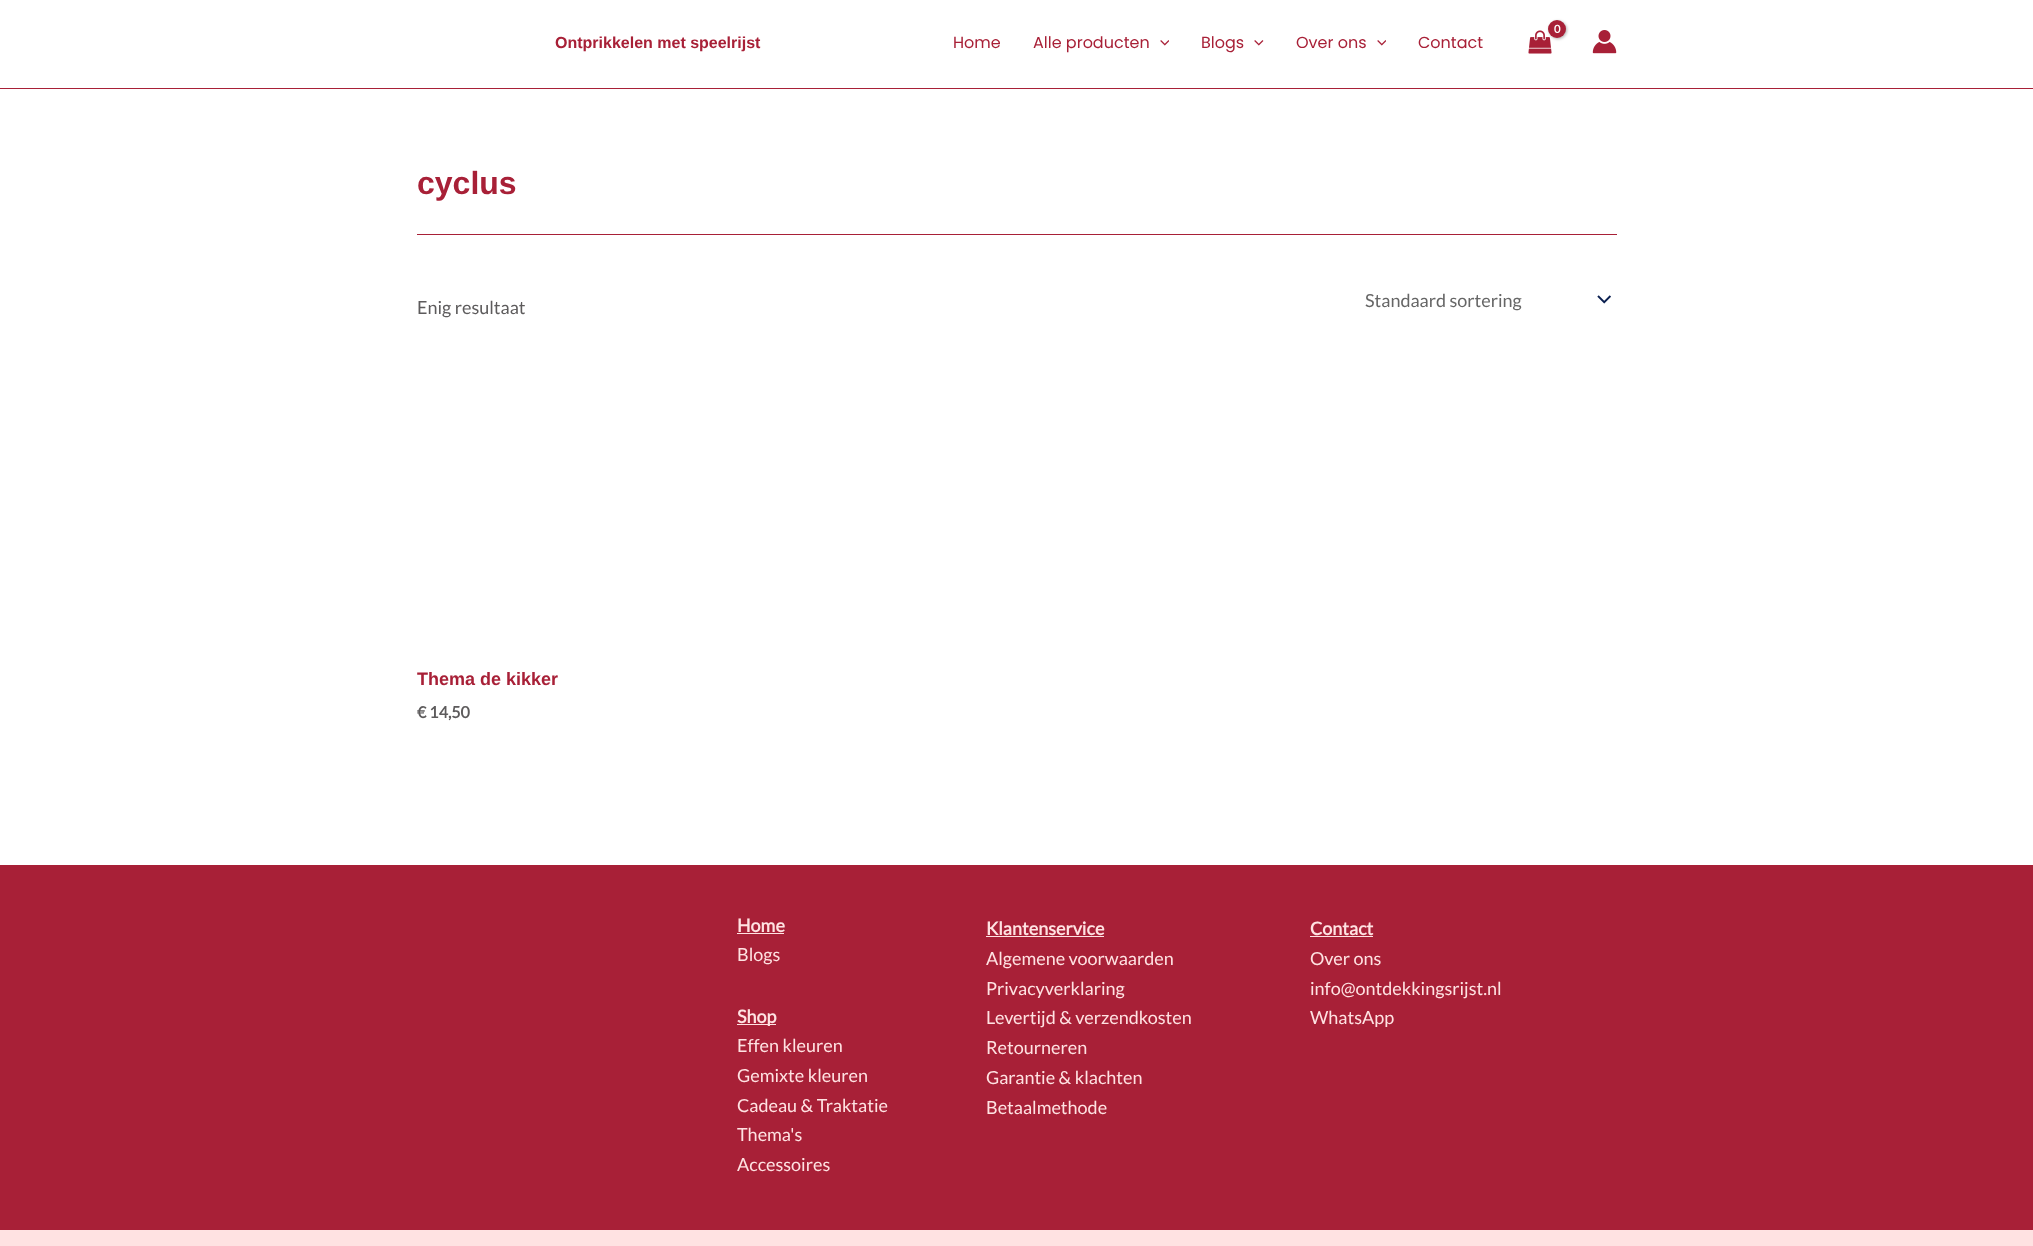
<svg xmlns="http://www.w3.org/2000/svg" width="2033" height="1246">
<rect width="100%" height="100%" fill="#fff"/>
<rect y="88" width="2033" height="1" fill="#a82037"/>
<text x="555" y="48" style="font-family:Liberation Sans;font-size:16px;font-weight:bold;fill:#a82037">Ontprikkelen met speelrijst</text>
<text x="953" y="48" style="font-family:Poppins;font-size:16px;fill:#a82037">Home</text>
<text x="1033" y="48" style="font-family:Poppins;font-size:16px;fill:#a82037">Alle producten</text>
<image x="1160" y="40" width="9" height="6" href="media/1.png"/>
<text x="1201" y="48" style="font-family:Poppins;font-size:16px;fill:#a82037">Blogs</text>
<image x="1254" y="40" width="10" height="6" href="media/2.png"/>
<text x="1296" y="48" style="font-family:Poppins;font-size:16px;fill:#a82037">Over ons</text>
<image x="1377" y="40" width="9" height="6" href="media/1.png"/>
<text x="1418" y="48" style="font-family:Poppins;font-size:16px;fill:#a82037">Contact</text>
<image x="1528" y="30" width="24" height="24" href="media/3.png"/>
<rect x="1549" y="21" width="18" height="18" rx="9" fill="#0000004d" filter="blur(1.5px)"/>
<circle cx="1557" cy="29" r="9" fill="#a82037"/>
<text x="1554" y="33" style="font-family:Lato;font-size:11px;font-weight:bold;fill:#fff">0</text>
<image x="1592" y="30" width="25" height="24" href="media/4.png"/>
<rect x="417" y="234" width="1200" height="1" fill="#a82037"/>
<text x="417" y="194" style="font-family:Liberation Sans;font-size:32px;font-weight:bold;fill:#a82037">cyclus</text>
<text x="417" y="314" style="font-family:Lato;font-size:18px;fill:#5d5b5c">Enig resultaat</text>
<image x="1597" y="295" width="14" height="9" href="media/5.png"/>
<text x="1365" y="307" style="font-family:Lato;font-size:18px;fill:#666">Standaard sortering</text>
<text x="417" y="685" style="font-family:Liberation Sans;font-size:18px;font-weight:bold;fill:#a82037">Thema de kikker</text>
<text x="417" y="718" style="font-family:Lato;font-size:16px;font-weight:bold;fill:#5d5b5c">€ 14,50</text>
<rect y="865" width="2033" height="365" fill="#a82037"/>
<text x="737" y="932" style="font-family:Lato;font-size:18px;font-weight:bold;fill:#ffe2e2">Home</text>
<rect x="737" y="933" width="47" height="1" fill="#ffe2e2"/>
<text x="737" y="961" style="font-family:Lato;font-size:18px;fill:#ffe2e2">Blogs</text>
<rect x="737" y="1024" width="39" height="1" fill="#ffe2e2"/>
<text x="737" y="1023" style="font-family:Lato;font-size:18px;font-weight:bold;fill:#ffe2e2">Shop</text>
<text x="737" y="1052" style="font-family:Lato;font-size:18px;fill:#ffe2e2">Effen kleuren</text>
<text x="737" y="1082" style="font-family:Lato;font-size:18px;fill:#ffe2e2">Gemixte kleuren</text>
<text x="737" y="1112" style="font-family:Lato;font-size:18px;fill:#ffe2e2">Cadeau &amp; Traktatie</text>
<text x="737" y="1141" style="font-family:Lato;font-size:18px;fill:#ffe2e2">Thema's</text>
<text x="737" y="1171" style="font-family:Lato;font-size:18px;fill:#ffe2e2">Accessoires</text>
<text x="986" y="935" style="font-family:Lato;font-size:18px;font-weight:bold;fill:#ffe2e2">Klantenservice</text>
<rect x="986" y="936" width="118" height="1" fill="#ffe2e2"/>
<text x="986" y="965" style="font-family:Lato;font-size:18px;fill:#ffe2e2">Algemene voorwaarden</text>
<text x="986" y="995" style="font-family:Lato;font-size:18px;fill:#ffe2e2">Privacyverklaring</text>
<text x="986" y="1024" style="font-family:Lato;font-size:18px;fill:#ffe2e2">Levertijd &amp; verzendkosten</text>
<text x="986" y="1054" style="font-family:Lato;font-size:18px;fill:#ffe2e2">Retourneren</text>
<text x="986" y="1084" style="font-family:Lato;font-size:18px;fill:#ffe2e2">Garantie &amp; klachten</text>
<text x="986" y="1114" style="font-family:Lato;font-size:18px;fill:#ffe2e2">Betaalmethode</text>
<text x="1310" y="935" style="font-family:Lato;font-size:18px;font-weight:bold;fill:#ffe2e2">Contact</text>
<rect x="1310" y="936" width="63" height="1" fill="#ffe2e2"/>
<text x="1310" y="965" style="font-family:Lato;font-size:18px;fill:#ffe2e2">Over ons</text>
<text x="1310" y="995" style="font-family:Lato;font-size:18px;fill:#ffe2e2">info@ontdekkingsrijst.nl</text>
<text x="1310" y="1024" style="font-family:Lato;font-size:18px;fill:#ffe2e2">WhatsApp</text>
<rect y="1230" width="2033" height="16" fill="#ffe2e2"/>
</svg>
